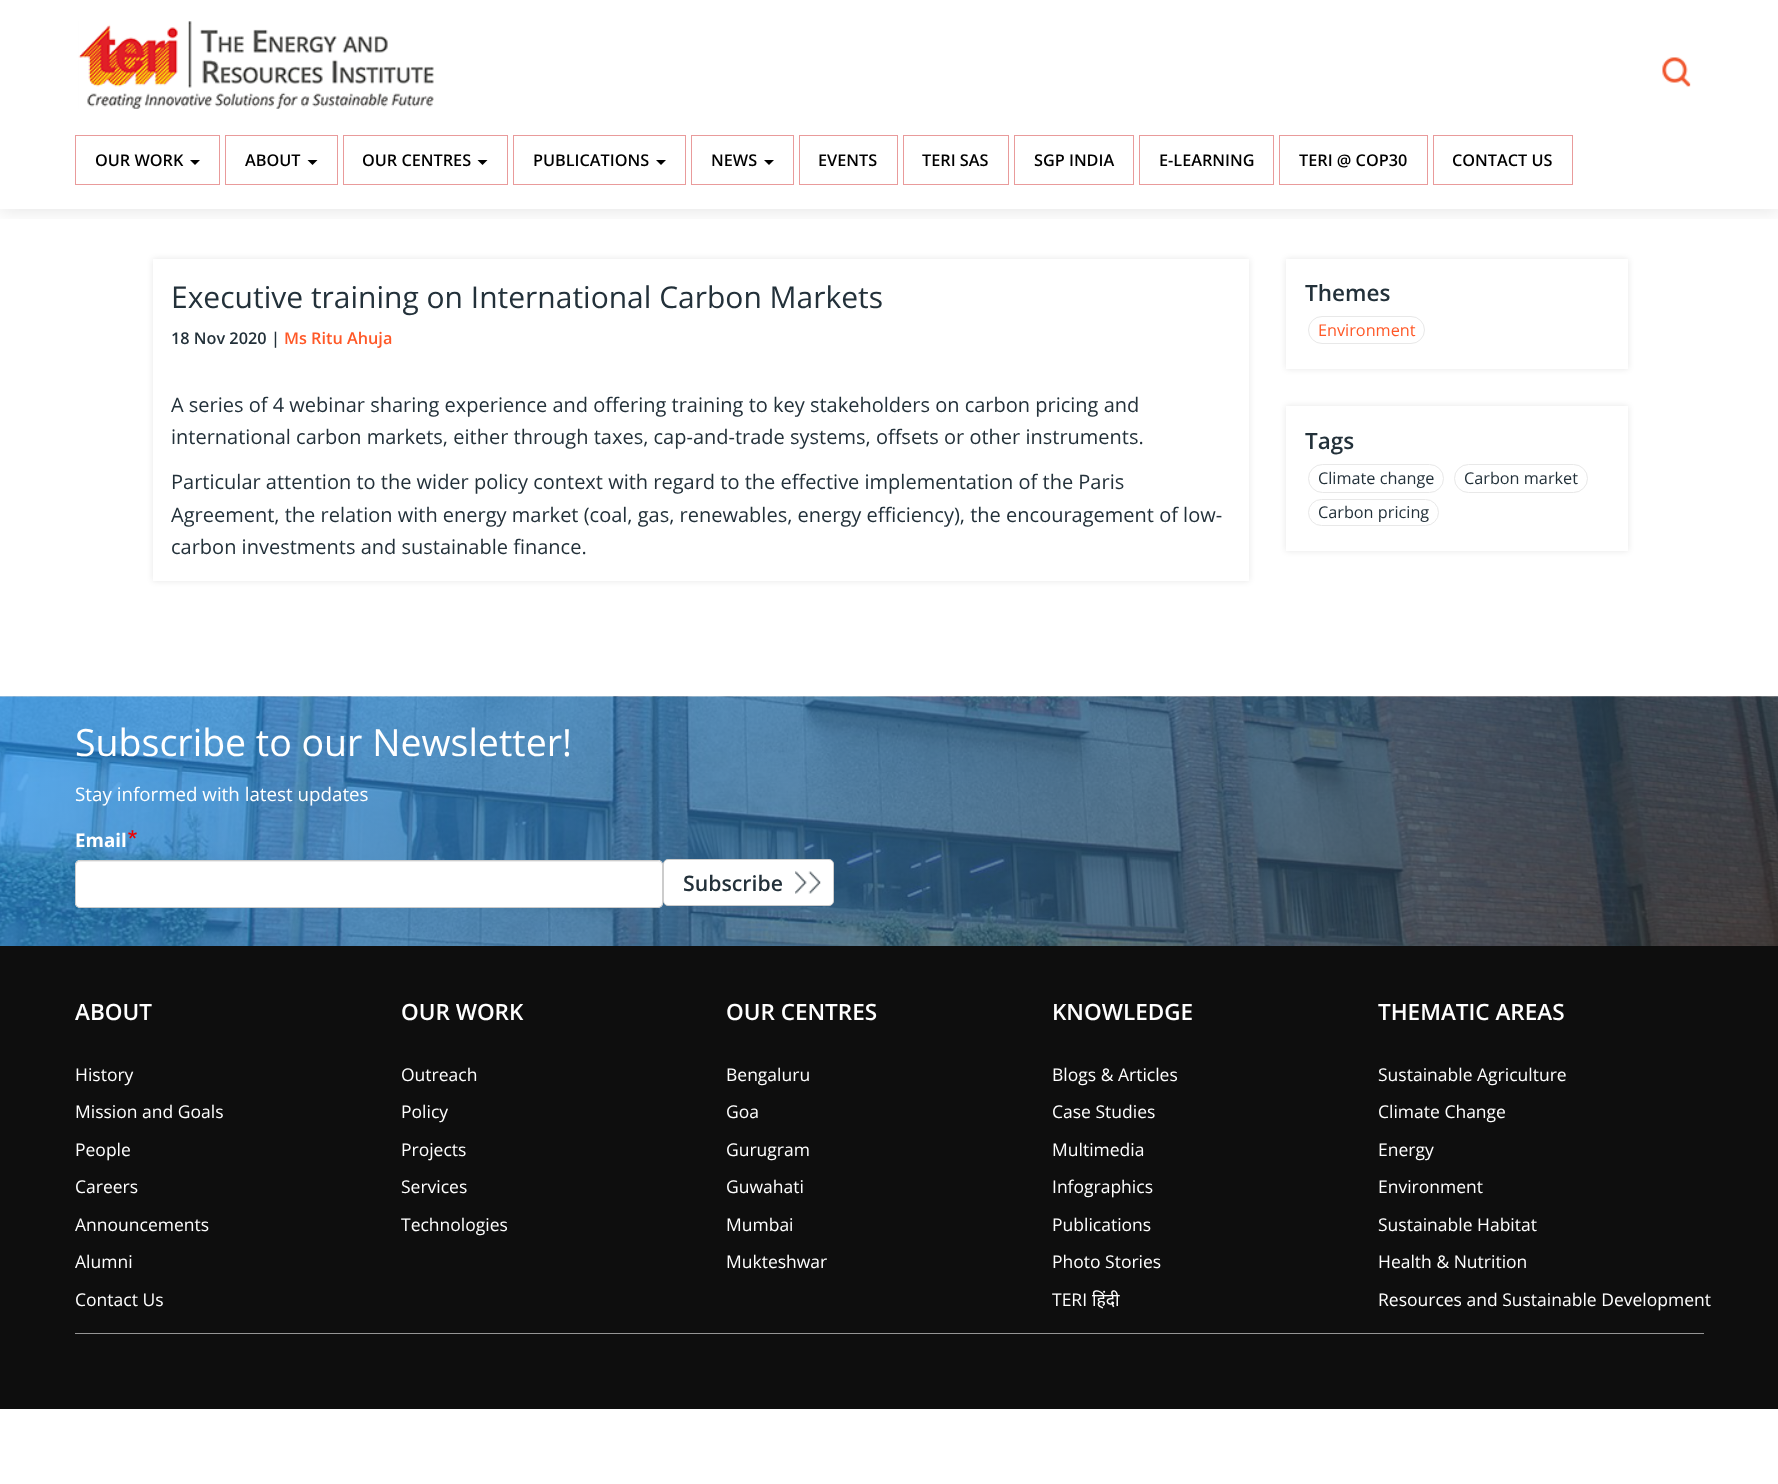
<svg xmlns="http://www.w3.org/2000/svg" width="1778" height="1484">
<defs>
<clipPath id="clip1"><rect x="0" y="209" width="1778" height="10"/></clipPath>
<clipPath id="clip2"><path d="M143 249h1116v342h-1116zm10 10h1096v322h-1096z" clip-rule="evenodd"/></clipPath>
<clipPath id="clip3"><path d="M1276 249h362v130h-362zm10 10h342v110h-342z" clip-rule="evenodd"/></clipPath>
<clipPath id="clip4"><path d="M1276 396h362v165h-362zm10 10h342v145h-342z" clip-rule="evenodd"/></clipPath>
</defs>
<rect width="100%" height="100%" fill="#fff"/>
<g clip-path="url(#clip1)">
<rect y="3" width="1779" height="208" fill="#0000001a" filter="blur(9.5px)"/>
</g>
<image x="78" y="21" width="356" height="88" href="media/1.png"/>
<image x="1662" y="57" width="29" height="30" href="media/2.png"/>
<rect x="75.5" y="135.5" width="144" height="49" fill="none" stroke="#e99b9b"/>
<text x="95" y="166" style="font-family:Open Sans;font-size:16.25px;font-weight:600;fill:#000">OUR WORK</text>
<path d="M190 160h10l-5 5z" fill="#000"/>
<rect x="225.5" y="135.5" width="112" height="49" fill="none" stroke="#e99b9b"/>
<text x="245" y="166" style="font-family:Open Sans;font-size:16.25px;font-weight:600;fill:#000">ABOUT</text>
<path d="M307.5 160h10l-5 5z" fill="#000"/>
<rect x="343.5" y="135.5" width="164" height="49" fill="none" stroke="#e99b9b"/>
<text x="362" y="166" style="font-family:Open Sans;font-size:16.25px;font-weight:600;fill:#000">OUR CENTRES</text>
<path d="M477.5 160h10l-5 5z" fill="#000"/>
<rect x="513.5" y="135.5" width="172" height="49" fill="none" stroke="#e99b9b"/>
<text x="533" y="166" style="font-family:Open Sans;font-size:16.25px;font-weight:600;fill:#000">PUBLICATIONS</text>
<path d="M656 160h10l-5 5z" fill="#000"/>
<rect x="691.5" y="135.5" width="102" height="49" fill="none" stroke="#e99b9b"/>
<text x="711" y="166" style="font-family:Open Sans;font-size:16.25px;font-weight:600;fill:#000">NEWS</text>
<path d="M764 160h10l-5 5z" fill="#000"/>
<rect x="799.5" y="135.5" width="98" height="49" fill="none" stroke="#e99b9b"/>
<text x="818" y="166" style="font-family:Open Sans;font-size:16.25px;font-weight:600;fill:#000">EVENTS</text>
<rect x="903.5" y="135.5" width="105" height="49" fill="none" stroke="#e99b9b"/>
<text x="922" y="166" style="font-family:Open Sans;font-size:16.25px;font-weight:600;fill:#000">TERI SAS</text>
<rect x="1014.5" y="135.5" width="119" height="49" fill="none" stroke="#e99b9b"/>
<text x="1034" y="166" style="font-family:Open Sans;font-size:16.25px;font-weight:600;fill:#000">SGP INDIA</text>
<rect x="1139.5" y="135.5" width="134" height="49" fill="none" stroke="#e99b9b"/>
<text x="1159" y="166" style="font-family:Open Sans;font-size:16.25px;font-weight:600;fill:#000">E-LEARNING</text>
<rect x="1279.5" y="135.5" width="148" height="49" fill="none" stroke="#e99b9b"/>
<text x="1299" y="166" style="font-family:Open Sans;font-size:16.25px;font-weight:600;fill:#000">TERI @ COP30</text>
<rect x="1433.5" y="135.5" width="139" height="49" fill="none" stroke="#e99b9b"/>
<text x="1452" y="166" style="font-family:Open Sans;font-size:16.25px;font-weight:600;fill:#000">CONTACT US</text>
<g clip-path="url(#clip2)">
<rect x="153" y="259" width="1096" height="322" fill="#0000001a" filter="blur(3px)"/>
</g>
<text x="171" y="308" style="font-family:Open Sans;font-size:30px;fill:#23313a">Executive training on International Carbon Markets</text>
<text x="171" y="344" style="font-family:Open Sans;font-size:16.25px;font-weight:600;fill:#23313a">18 Nov 2020</text>
<text x="271" y="344" style="font-family:Open Sans;font-size:16.25px;font-weight:600;fill:#23313a">|</text>
<text x="284" y="344" style="font-family:Open Sans;font-size:16.25px;font-weight:600;fill:#ff5827">Ms Ritu Ahuja</text>
<text x="171" y="412" style="font-family:Open Sans;font-size:20px;fill:#23313a">A series of 4 webinar sharing experience and offering training to key stakeholders on carbon pricing and</text>
<text x="171" y="444" style="font-family:Open Sans;font-size:20px;fill:#23313a">international carbon markets, either through taxes, cap-and-trade systems, offsets or other instruments.</text>
<text x="171" y="489" style="font-family:Open Sans;font-size:20px;fill:#23313a">Particular attention to the wider policy context with regard to the effective implementation of the Paris</text>
<text x="171" y="522" style="font-family:Open Sans;font-size:20px;fill:#23313a">Agreement, the relation with energy market (coal, gas, renewables, energy efficiency), the encouragement of low-</text>
<text x="171" y="554" style="font-family:Open Sans;font-size:20px;fill:#23313a">carbon investments and sustainable finance.</text>
<g clip-path="url(#clip3)">
<rect x="1286" y="259" width="342" height="110" fill="#0000001a" filter="blur(3px)"/>
</g>
<text x="1305" y="301" style="font-family:Open Sans;font-size:22.5px;font-weight:600;fill:#23313a">Themes</text>
<rect x="1308.5" y="316.5" width="116" height="27" rx="13.5" fill="none" stroke="#e8e8e8"/>
<text x="1318" y="336" style="font-family:Open Sans;font-size:16.25px;fill:#ff5827">Environment</text>
<g clip-path="url(#clip4)">
<rect x="1286" y="406" width="342" height="145" fill="#0000001a" filter="blur(3px)"/>
</g>
<text x="1305" y="449" style="font-family:Open Sans;font-size:22.5px;font-weight:600;fill:#23313a">Tags</text>
<rect x="1308.5" y="464.5" width="135" height="28" rx="14" fill="none" stroke="#e8e8e8"/>
<text x="1318" y="484" style="font-family:Open Sans;font-size:16.25px;fill:#23313a">Climate change</text>
<rect x="1454.5" y="464.5" width="133" height="28" rx="14" fill="none" stroke="#e8e8e8"/>
<text x="1464" y="484" style="font-family:Open Sans;font-size:16.25px;fill:#23313a">Carbon market</text>
<rect x="1308.5" y="499.5" width="130" height="26" rx="13" fill="none" stroke="#e8e8e8"/>
<text x="1318" y="518" style="font-family:Open Sans;font-size:16.25px;fill:#23313a">Carbon pricing</text>
<image x="0" y="696" width="1778" height="250" href="media/3.png"/>
<text x="75" y="756" style="font-family:Open Sans;font-size:37.5px;fill:#fff">Subscribe to our Newsletter!</text>
<text x="75" y="801" style="font-family:Open Sans;font-size:18.75px;fill:#fff">Stay informed with latest updates</text>
<text x="75" y="847" style="font-family:Open Sans;font-size:18.75px;font-weight:bold;fill:#fff">Email</text>
<image x="128" y="830" width="9" height="9" href="media/4.png"/>
<rect x="75" y="860" width="588" height="48" rx="5" fill="#fff"/>
<path d="M80 862h578c2 0 3 2 3 4v-1c0-2-2-4-4-4h-577c-2 0-4 2-4 4v1c0-2 2-4 4-4z" fill="#ececec"/>
<rect x="75.5" y="860.5" width="587" height="47" rx="4.5" fill="none" stroke="#ccc"/>
<rect x="663.5" y="859.5" width="170" height="46" rx="4.5" fill="#fff" stroke="#ccc"/>
<text x="683" y="891" style="font-family:Open Sans;font-size:21.25px;font-weight:600;fill:#23313a">Subscribe</text>
<image x="795" y="871" width="26" height="23" href="media/5.png"/>
<rect y="946" width="1778" height="463" fill="#0e0e0e"/>
<text x="75" y="1020" style="font-family:Open Sans;font-size:22.5px;font-weight:600;fill:#fff">ABOUT</text>
<text x="75" y="1081" style="font-family:Open Sans;font-size:17.5px;fill:#fff">History</text>
<text x="75" y="1118" style="font-family:Open Sans;font-size:17.5px;fill:#fff">Mission and Goals</text>
<text x="75" y="1156" style="font-family:Open Sans;font-size:17.5px;fill:#fff">People</text>
<text x="75" y="1193" style="font-family:Open Sans;font-size:17.5px;fill:#fff">Careers</text>
<text x="75" y="1231" style="font-family:Open Sans;font-size:17.5px;fill:#fff">Announcements</text>
<text x="75" y="1268" style="font-family:Open Sans;font-size:17.5px;fill:#fff">Alumni</text>
<text x="75" y="1306" style="font-family:Open Sans;font-size:17.5px;fill:#fff">Contact Us</text>
<text x="401" y="1020" style="font-family:Open Sans;font-size:22.5px;font-weight:600;fill:#fff">OUR WORK</text>
<text x="401" y="1081" style="font-family:Open Sans;font-size:17.5px;fill:#fff">Outreach</text>
<text x="401" y="1118" style="font-family:Open Sans;font-size:17.5px;fill:#fff">Policy</text>
<text x="401" y="1156" style="font-family:Open Sans;font-size:17.5px;fill:#fff">Projects</text>
<text x="401" y="1193" style="font-family:Open Sans;font-size:17.5px;fill:#fff">Services</text>
<text x="401" y="1231" style="font-family:Open Sans;font-size:17.5px;fill:#fff">Technologies</text>
<text x="726" y="1020" style="font-family:Open Sans;font-size:22.5px;font-weight:600;fill:#fff">OUR CENTRES</text>
<text x="726" y="1081" style="font-family:Open Sans;font-size:17.5px;fill:#fff">Bengaluru</text>
<text x="726" y="1118" style="font-family:Open Sans;font-size:17.5px;fill:#fff">Goa</text>
<text x="726" y="1156" style="font-family:Open Sans;font-size:17.5px;fill:#fff">Gurugram</text>
<text x="726" y="1193" style="font-family:Open Sans;font-size:17.5px;fill:#fff">Guwahati</text>
<text x="726" y="1231" style="font-family:Open Sans;font-size:17.5px;fill:#fff">Mumbai</text>
<text x="726" y="1268" style="font-family:Open Sans;font-size:17.5px;fill:#fff">Mukteshwar</text>
<text x="1052" y="1020" style="font-family:Open Sans;font-size:22.5px;font-weight:600;fill:#fff">KNOWLEDGE</text>
<text x="1052" y="1081" style="font-family:Open Sans;font-size:17.5px;fill:#fff">Blogs &amp; Articles</text>
<text x="1052" y="1118" style="font-family:Open Sans;font-size:17.5px;fill:#fff">Case Studies</text>
<text x="1052" y="1156" style="font-family:Open Sans;font-size:17.5px;fill:#fff">Multimedia</text>
<text x="1052" y="1193" style="font-family:Open Sans;font-size:17.5px;fill:#fff">Infographics</text>
<text x="1052" y="1231" style="font-family:Open Sans;font-size:17.5px;fill:#fff">Publications</text>
<text x="1052" y="1268" style="font-family:Open Sans;font-size:17.5px;fill:#fff">Photo Stories</text>
<text x="1052" y="1306" style="font-family:Open Sans;font-size:17.5px;fill:#fff">TERI</text>
<text x="1092" y="1306" style="font-family:Noto Sans;font-size:17.5px;fill:#fff">हिंदी</text>
<text x="1378" y="1020" style="font-family:Open Sans;font-size:22.5px;font-weight:600;fill:#fff">THEMATIC AREAS</text>
<text x="1378" y="1081" style="font-family:Open Sans;font-size:17.5px;fill:#fff">Sustainable Agriculture</text>
<text x="1378" y="1118" style="font-family:Open Sans;font-size:17.5px;fill:#fff">Climate Change</text>
<text x="1378" y="1156" style="font-family:Open Sans;font-size:17.5px;fill:#fff">Energy</text>
<text x="1378" y="1193" style="font-family:Open Sans;font-size:17.5px;fill:#fff">Environment</text>
<text x="1378" y="1231" style="font-family:Open Sans;font-size:17.5px;fill:#fff">Sustainable Habitat</text>
<text x="1378" y="1268" style="font-family:Open Sans;font-size:17.5px;fill:#fff">Health &amp; Nutrition</text>
<text x="1378" y="1306" style="font-family:Open Sans;font-size:17.5px;fill:#fff">Resources and Sustainable Development</text>
<rect x="75" y="1333" width="1629" height="1" fill="#959595"/>
</svg>
